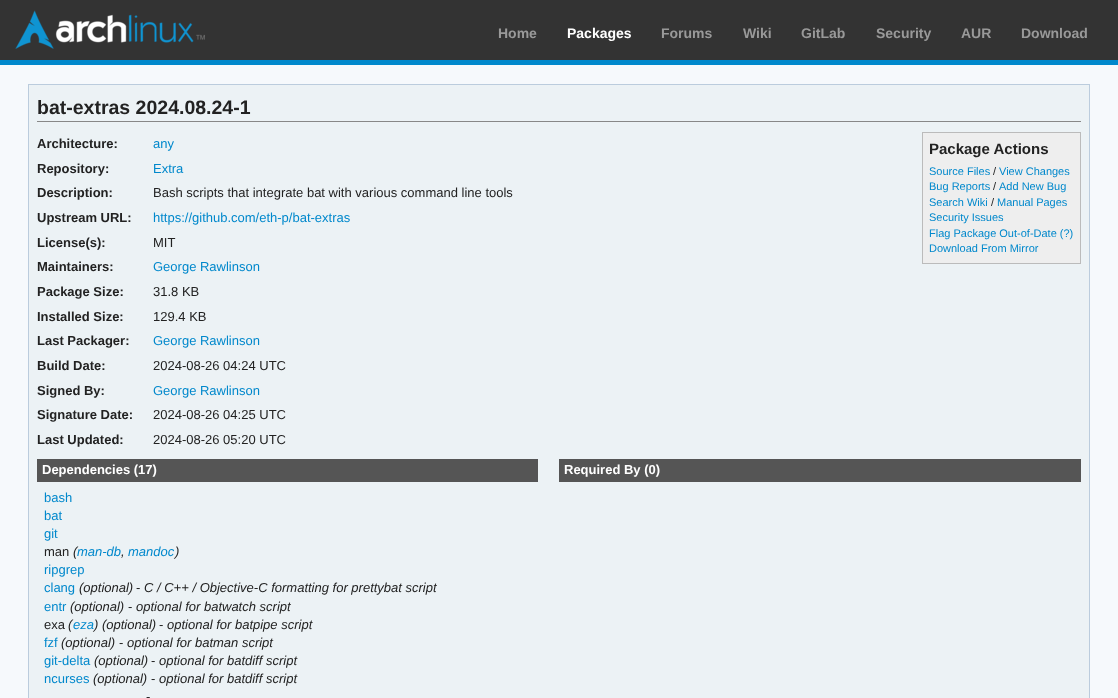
<svg xmlns="http://www.w3.org/2000/svg" width="1118" height="698">
<rect width="100%" height="100%" fill="#f6f9fc"/>
<rect width="1118" height="60" fill="#333"/>
<rect y="60" width="1118" height="5" fill="#08c"/>
<image x="15" y="10" width="190" height="39" href="media/1.png"/>
<text x="498" y="38" style="font-family:Liberation Sans;font-size:14px;font-weight:bold;fill:#999">Home</text>
<text x="567" y="38" style="font-family:Liberation Sans;font-size:14px;font-weight:bold;fill:#fff">Packages</text>
<text x="661" y="38" style="font-family:Liberation Sans;font-size:14px;font-weight:bold;fill:#999">Forums</text>
<text x="743" y="38" style="font-family:Liberation Sans;font-size:14px;font-weight:bold;fill:#999">Wiki</text>
<text x="801" y="38" style="font-family:Liberation Sans;font-size:14px;font-weight:bold;fill:#999">GitLab</text>
<text x="876" y="38" style="font-family:Liberation Sans;font-size:14px;font-weight:bold;fill:#999">Security</text>
<text x="961" y="38" style="font-family:Liberation Sans;font-size:14px;font-weight:bold;fill:#999">AUR</text>
<text x="1021" y="38" style="font-family:Liberation Sans;font-size:14px;font-weight:bold;fill:#999">Download</text>
<rect x="28.5" y="84.5" width="1061" height="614" fill="#ecf2f5" stroke="#bcd"/>
<rect x="37" y="121" width="1044" height="1" fill="#888"/>
<text x="37" y="114" style="font-family:Liberation Sans;font-size:19.5px;font-weight:bold;fill:#222">bat-extras 2024.08.24-1</text>
<text x="37" y="148" style="font-family:Liberation Sans;font-size:13px;font-weight:bold;fill:#222">Architecture:</text>
<text x="153" y="148" style="font-family:Liberation Sans;font-size:13px;fill:#08c">any</text>
<text x="37" y="173" style="font-family:Liberation Sans;font-size:13px;font-weight:bold;fill:#222">Repository:</text>
<text x="153" y="173" style="font-family:Liberation Sans;font-size:13px;fill:#08c">Extra</text>
<text x="37" y="197" style="font-family:Liberation Sans;font-size:13px;font-weight:bold;fill:#222">Description:</text>
<text x="153" y="197" style="font-family:Liberation Sans;font-size:13px;fill:#222">Bash scripts that integrate bat with various command line tools</text>
<text x="37" y="222" style="font-family:Liberation Sans;font-size:13px;font-weight:bold;fill:#222">Upstream URL:</text>
<text x="153" y="222" style="font-family:Liberation Sans;font-size:13px;fill:#08c">https://github.com/eth-p/bat-extras</text>
<text x="37" y="247" style="font-family:Liberation Sans;font-size:13px;font-weight:bold;fill:#222">License(s):</text>
<text x="153" y="247" style="font-family:Liberation Sans;font-size:13px;fill:#222">MIT</text>
<text x="37" y="271" style="font-family:Liberation Sans;font-size:13px;font-weight:bold;fill:#222">Maintainers:</text>
<text x="153" y="271" style="font-family:Liberation Sans;font-size:13px;fill:#08c">George Rawlinson</text>
<text x="37" y="296" style="font-family:Liberation Sans;font-size:13px;font-weight:bold;fill:#222">Package Size:</text>
<text x="153" y="296" style="font-family:Liberation Sans;font-size:13px;fill:#222">31.8 KB</text>
<text x="37" y="321" style="font-family:Liberation Sans;font-size:13px;font-weight:bold;fill:#222">Installed Size:</text>
<text x="153" y="321" style="font-family:Liberation Sans;font-size:13px;fill:#222">129.4 KB</text>
<text x="37" y="345" style="font-family:Liberation Sans;font-size:13px;font-weight:bold;fill:#222">Last Packager:</text>
<text x="153" y="345" style="font-family:Liberation Sans;font-size:13px;fill:#08c">George Rawlinson</text>
<text x="37" y="370" style="font-family:Liberation Sans;font-size:13px;font-weight:bold;fill:#222">Build Date:</text>
<text x="153" y="370" style="font-family:Liberation Sans;font-size:13px;fill:#222">2024-08-26 04:24 UTC</text>
<text x="37" y="395" style="font-family:Liberation Sans;font-size:13px;font-weight:bold;fill:#222">Signed By:</text>
<text x="153" y="395" style="font-family:Liberation Sans;font-size:13px;fill:#08c">George Rawlinson</text>
<text x="37" y="419" style="font-family:Liberation Sans;font-size:13px;font-weight:bold;fill:#222">Signature Date:</text>
<text x="153" y="419" style="font-family:Liberation Sans;font-size:13px;fill:#222">2024-08-26 04:25 UTC</text>
<text x="37" y="444" style="font-family:Liberation Sans;font-size:13px;font-weight:bold;fill:#222">Last Updated:</text>
<text x="153" y="444" style="font-family:Liberation Sans;font-size:13px;fill:#222">2024-08-26 05:20 UTC</text>
<rect x="922.5" y="132.5" width="158" height="131" fill="#eee" stroke="#bbb"/>
<text x="929" y="154" style="font-family:Liberation Sans;font-size:15px;font-weight:bold;fill:#222">Package Actions</text>
<text x="929" y="175" style="font-family:Liberation Sans;font-size:11px;fill:#08c">Source Files</text>
<text x="993" y="175" style="font-family:Liberation Sans;font-size:11px;fill:#222">/</text>
<text x="999" y="175" style="font-family:Liberation Sans;font-size:11px;fill:#08c">View Changes</text>
<text x="929" y="190" style="font-family:Liberation Sans;font-size:11px;fill:#08c">Bug Reports</text>
<text x="993" y="190" style="font-family:Liberation Sans;font-size:11px;fill:#222">/</text>
<text x="999" y="190" style="font-family:Liberation Sans;font-size:11px;fill:#08c">Add New Bug</text>
<text x="929" y="206" style="font-family:Liberation Sans;font-size:11px;fill:#08c">Search Wiki</text>
<text x="991" y="206" style="font-family:Liberation Sans;font-size:11px;fill:#222">/</text>
<text x="997" y="206" style="font-family:Liberation Sans;font-size:11px;fill:#08c">Manual Pages</text>
<text x="929" y="221" style="font-family:Liberation Sans;font-size:11px;fill:#08c">Security Issues</text>
<text x="929" y="237" style="font-family:Liberation Sans;font-size:11px;fill:#08c">Flag Package Out-of-Date (?)</text>
<text x="929" y="252" style="font-family:Liberation Sans;font-size:11px;fill:#08c">Download From Mirror</text>
<rect x="37" y="459" width="501" height="23" fill="#555"/>
<text x="42" y="474" style="font-family:Liberation Sans;font-size:13px;font-weight:bold;fill:#fff">Dependencies (17)</text>
<text x="44" y="502" style="font-family:Liberation Sans;font-size:13px;fill:#08c">bash</text>
<text x="44" y="520" style="font-family:Liberation Sans;font-size:13px;fill:#08c">bat</text>
<text x="44" y="538" style="font-family:Liberation Sans;font-size:13px;fill:#08c">git</text>
<text x="44" y="556" style="font-family:Liberation Sans;font-size:13px;fill:#222">man</text>
<text x="73" y="556" style="font-family:Liberation Sans;font-size:13px;font-style:italic;fill:#222">(</text>
<text x="77" y="556" style="font-family:Liberation Sans;font-size:13px;font-style:italic;fill:#08c">man-db</text>
<text x="121" y="556" style="font-family:Liberation Sans;font-size:13px;font-style:italic;fill:#222">,</text>
<text x="128" y="556" style="font-family:Liberation Sans;font-size:13px;font-style:italic;fill:#08c">mandoc</text>
<text x="175" y="556" style="font-family:Liberation Sans;font-size:13px;font-style:italic;fill:#222">)</text>
<text x="44" y="574" style="font-family:Liberation Sans;font-size:13px;fill:#08c">ripgrep</text>
<text x="44" y="592" style="font-family:Liberation Sans;font-size:13px;fill:#08c">clang</text>
<text x="79" y="592" style="font-family:Liberation Sans;font-size:13px;font-style:italic;fill:#222">(optional)</text>
<text x="136" y="592" style="font-family:Liberation Sans;font-size:13px;fill:#222">-</text>
<text x="144" y="592" style="font-family:Liberation Sans;font-size:13px;font-style:italic;fill:#222">C / C++ / Objective-C formatting for prettybat script</text>
<text x="44" y="611" style="font-family:Liberation Sans;font-size:13px;fill:#08c">entr</text>
<text x="70" y="611" style="font-family:Liberation Sans;font-size:13px;font-style:italic;fill:#222">(optional)</text>
<text x="128" y="611" style="font-family:Liberation Sans;font-size:13px;fill:#222">-</text>
<text x="136" y="611" style="font-family:Liberation Sans;font-size:13px;font-style:italic;fill:#222">optional for batwatch script</text>
<text x="44" y="629" style="font-family:Liberation Sans;font-size:13px;fill:#222">exa</text>
<text x="68" y="629" style="font-family:Liberation Sans;font-size:13px;font-style:italic;fill:#222">(</text>
<text x="73" y="629" style="font-family:Liberation Sans;font-size:13px;font-style:italic;fill:#08c">eza</text>
<text x="94" y="629" style="font-family:Liberation Sans;font-size:13px;font-style:italic;fill:#222">) (optional)</text>
<text x="159" y="629" style="font-family:Liberation Sans;font-size:13px;fill:#222">-</text>
<text x="167" y="629" style="font-family:Liberation Sans;font-size:13px;font-style:italic;fill:#222">optional for batpipe script</text>
<text x="44" y="647" style="font-family:Liberation Sans;font-size:13px;fill:#08c">fzf</text>
<text x="61" y="647" style="font-family:Liberation Sans;font-size:13px;font-style:italic;fill:#222">(optional)</text>
<text x="119" y="647" style="font-family:Liberation Sans;font-size:13px;fill:#222">-</text>
<text x="127" y="647" style="font-family:Liberation Sans;font-size:13px;font-style:italic;fill:#222">optional for batman script</text>
<text x="44" y="665" style="font-family:Liberation Sans;font-size:13px;fill:#08c">git-delta</text>
<text x="94" y="665" style="font-family:Liberation Sans;font-size:13px;font-style:italic;fill:#222">(optional)</text>
<text x="151" y="665" style="font-family:Liberation Sans;font-size:13px;fill:#222">-</text>
<text x="159" y="665" style="font-family:Liberation Sans;font-size:13px;font-style:italic;fill:#222">optional for batdiff script</text>
<text x="44" y="683" style="font-family:Liberation Sans;font-size:13px;fill:#08c">ncurses</text>
<text x="93" y="683" style="font-family:Liberation Sans;font-size:13px;font-style:italic;fill:#222">(optional)</text>
<text x="151" y="683" style="font-family:Liberation Sans;font-size:13px;fill:#222">-</text>
<text x="159" y="683" style="font-family:Liberation Sans;font-size:13px;font-style:italic;fill:#222">optional for batdiff script</text>
<text x="146" y="701" style="font-family:Liberation Sans;font-size:13px;fill:#222">-</text>
<rect x="559" y="459" width="522" height="23" fill="#555"/>
<text x="564" y="474" style="font-family:Liberation Sans;font-size:13px;font-weight:bold;fill:#fff">Required By (0)</text>
</svg>
